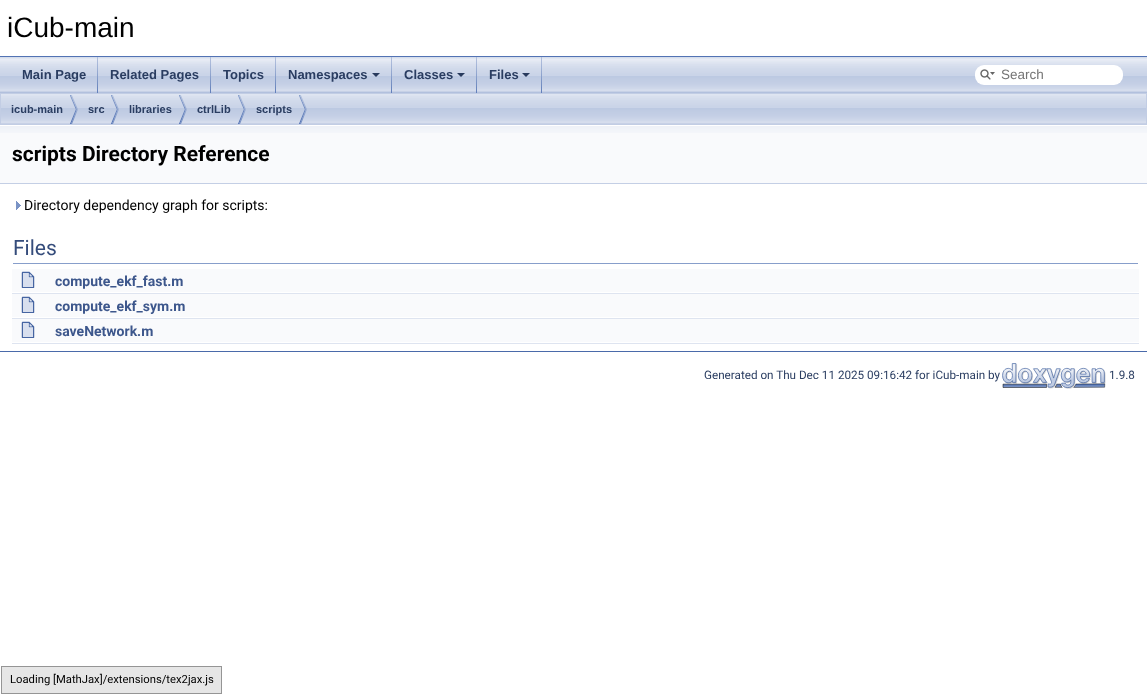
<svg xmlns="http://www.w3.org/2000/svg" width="1147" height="696">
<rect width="100%" height="100%" fill="#fff"/>
<rect y="56" width="1147" height="1" fill="#5373b4"/>
<text x="7" y="37" style="font-family:Liberation Sans;font-size:28px;fill:#000">iCub-main</text>
<image x="0" y="57" width="1147" height="36" href="media/1.png"/>
<image x="97" y="57" width="1" height="36" href="media/2.png"/>
<text x="22" y="79" style="font-family:Liberation Sans;font-size:13px;font-weight:bold;fill:#2a3d61">Main Page</text>
<image x="210" y="57" width="1" height="36" href="media/2.png"/>
<text x="110" y="79" style="font-family:Liberation Sans;font-size:13px;font-weight:bold;fill:#2a3d61">Related Pages</text>
<image x="275" y="57" width="1" height="36" href="media/2.png"/>
<text x="223" y="79" style="font-family:Liberation Sans;font-size:13px;font-weight:bold;fill:#2a3d61">Topics</text>
<image x="391" y="57" width="1" height="36" href="media/2.png"/>
<text x="288" y="79" style="font-family:Liberation Sans;font-size:13px;font-weight:bold;fill:#2a3d61">Namespaces</text>
<path d="M372 73h8l-4 4z" fill="#283a5d"/>
<image x="476" y="57" width="1" height="36" href="media/2.png"/>
<text x="404" y="79" style="font-family:Liberation Sans;font-size:13px;font-weight:bold;fill:#2a3d61">Classes</text>
<path d="M457 73h8l-4 4z" fill="#283a5d"/>
<image x="541" y="57" width="1" height="36" href="media/2.png"/>
<text x="489" y="79" style="font-family:Liberation Sans;font-size:13px;font-weight:bold;fill:#2a3d61">Files</text>
<path d="M522 73h8l-4 4z" fill="#283a5d"/>
<rect x="975" y="65" width="148" height="20" rx="9" fill="#fff"/>
<image x="980" y="69" width="15" height="11" href="media/3.png"/>
<text x="1001" y="79" style="font-family:Liberation Sans;font-size:13.5px;fill:#757575">Search</text>
<image x="1" y="94" width="1145" height="30" href="media/4.png"/>
<rect x="0.5" y="93.5" width="1146" height="31" fill="none" stroke="#c2cde4"/>
<image x="70" y="95" width="8" height="29" href="media/5.png"/>
<text x="11" y="113" style="font-family:Liberation Sans;font-size:11px;font-weight:bold;fill:#2a3d61">icub-main</text>
<image x="111" y="95" width="8" height="29" href="media/5.png"/>
<text x="88" y="113" style="font-family:Liberation Sans;font-size:11px;font-weight:bold;fill:#2a3d61">src</text>
<image x="179" y="95" width="8" height="29" href="media/5.png"/>
<text x="129" y="113" style="font-family:Liberation Sans;font-size:11px;font-weight:bold;fill:#2a3d61">libraries</text>
<image x="238" y="95" width="8" height="29" href="media/5.png"/>
<text x="197" y="113" style="font-family:Liberation Sans;font-size:11px;font-weight:bold;fill:#2a3d61">ctrlLib</text>
<image x="299" y="95" width="8" height="29" href="media/5.png"/>
<text x="256" y="113" style="font-family:Liberation Sans;font-size:11px;font-weight:bold;fill:#2a3d61">scripts</text>
<rect y="133" width="1147" height="50" fill="#f9fafc"/>
<image x="0" y="125" width="1147" height="8" href="media/6.png"/>
<rect y="183" width="1147" height="1" fill="#c4cfe5"/>
<text x="12" y="161" style="font-family:Roboto;font-size:21px;font-weight:bold;fill:#000">scripts Directory Reference</text>
<image x="16" y="201" width="5" height="9" href="media/7.png"/>
<text x="24" y="210" style="font-family:Roboto;font-size:14px;fill:#000">Directory dependency graph for scripts:</text>
<rect x="13" y="263" width="1125" height="1" fill="#879ecb"/>
<text x="13" y="255" style="font-family:Roboto;font-size:21px;fill:#354c7b">Files</text>
<rect x="12" y="269" width="1127" height="23" fill="#f9fafc"/>
<image x="21" y="271" width="14" height="17" href="media/8.png"/>
<text x="55" y="286" style="font-family:Roboto;font-size:14px;font-weight:bold;fill:#3d578c">compute_ekf_fast.m</text>
<rect x="12" y="293" width="1127" height="1" fill="#dee4f0"/>
<rect x="12" y="294" width="1127" height="23" fill="#f9fafc"/>
<image x="21" y="296" width="14" height="17" href="media/8.png"/>
<text x="55" y="311" style="font-family:Roboto;font-size:14px;font-weight:bold;fill:#3d578c">compute_ekf_sym.m</text>
<rect x="12" y="318" width="1127" height="1" fill="#dee4f0"/>
<rect x="12" y="319" width="1127" height="23" fill="#f9fafc"/>
<image x="21" y="321" width="14" height="17" href="media/8.png"/>
<text x="55" y="336" style="font-family:Roboto;font-size:14px;font-weight:bold;fill:#3d578c">saveNetwork.m</text>
<rect x="12" y="343" width="1127" height="1" fill="#dee4f0"/>
<rect y="351" width="1147" height="1" fill="#4a6aaa"/>
<text x="704" y="379" style="font-family:Roboto;font-size:11.7px;fill:#2a3d61">Generated on Thu Dec 11 2025 09:16:42 for iCub-main by</text>
<image x="1002" y="363" width="104" height="26" href="media/9.png"/>
<text x="1109" y="379" style="font-family:Roboto;font-size:11.7px;fill:#2a3d61">1.9.8</text>
<rect x="1.5" y="666.5" width="220" height="27" fill="#e6e6e6" stroke="#959595"/>
<text x="10" y="683" style="font-family:Roboto;font-size:11.25px;fill:#000">Loading [MathJax]/extensions/tex2jax.js</text>
</svg>
